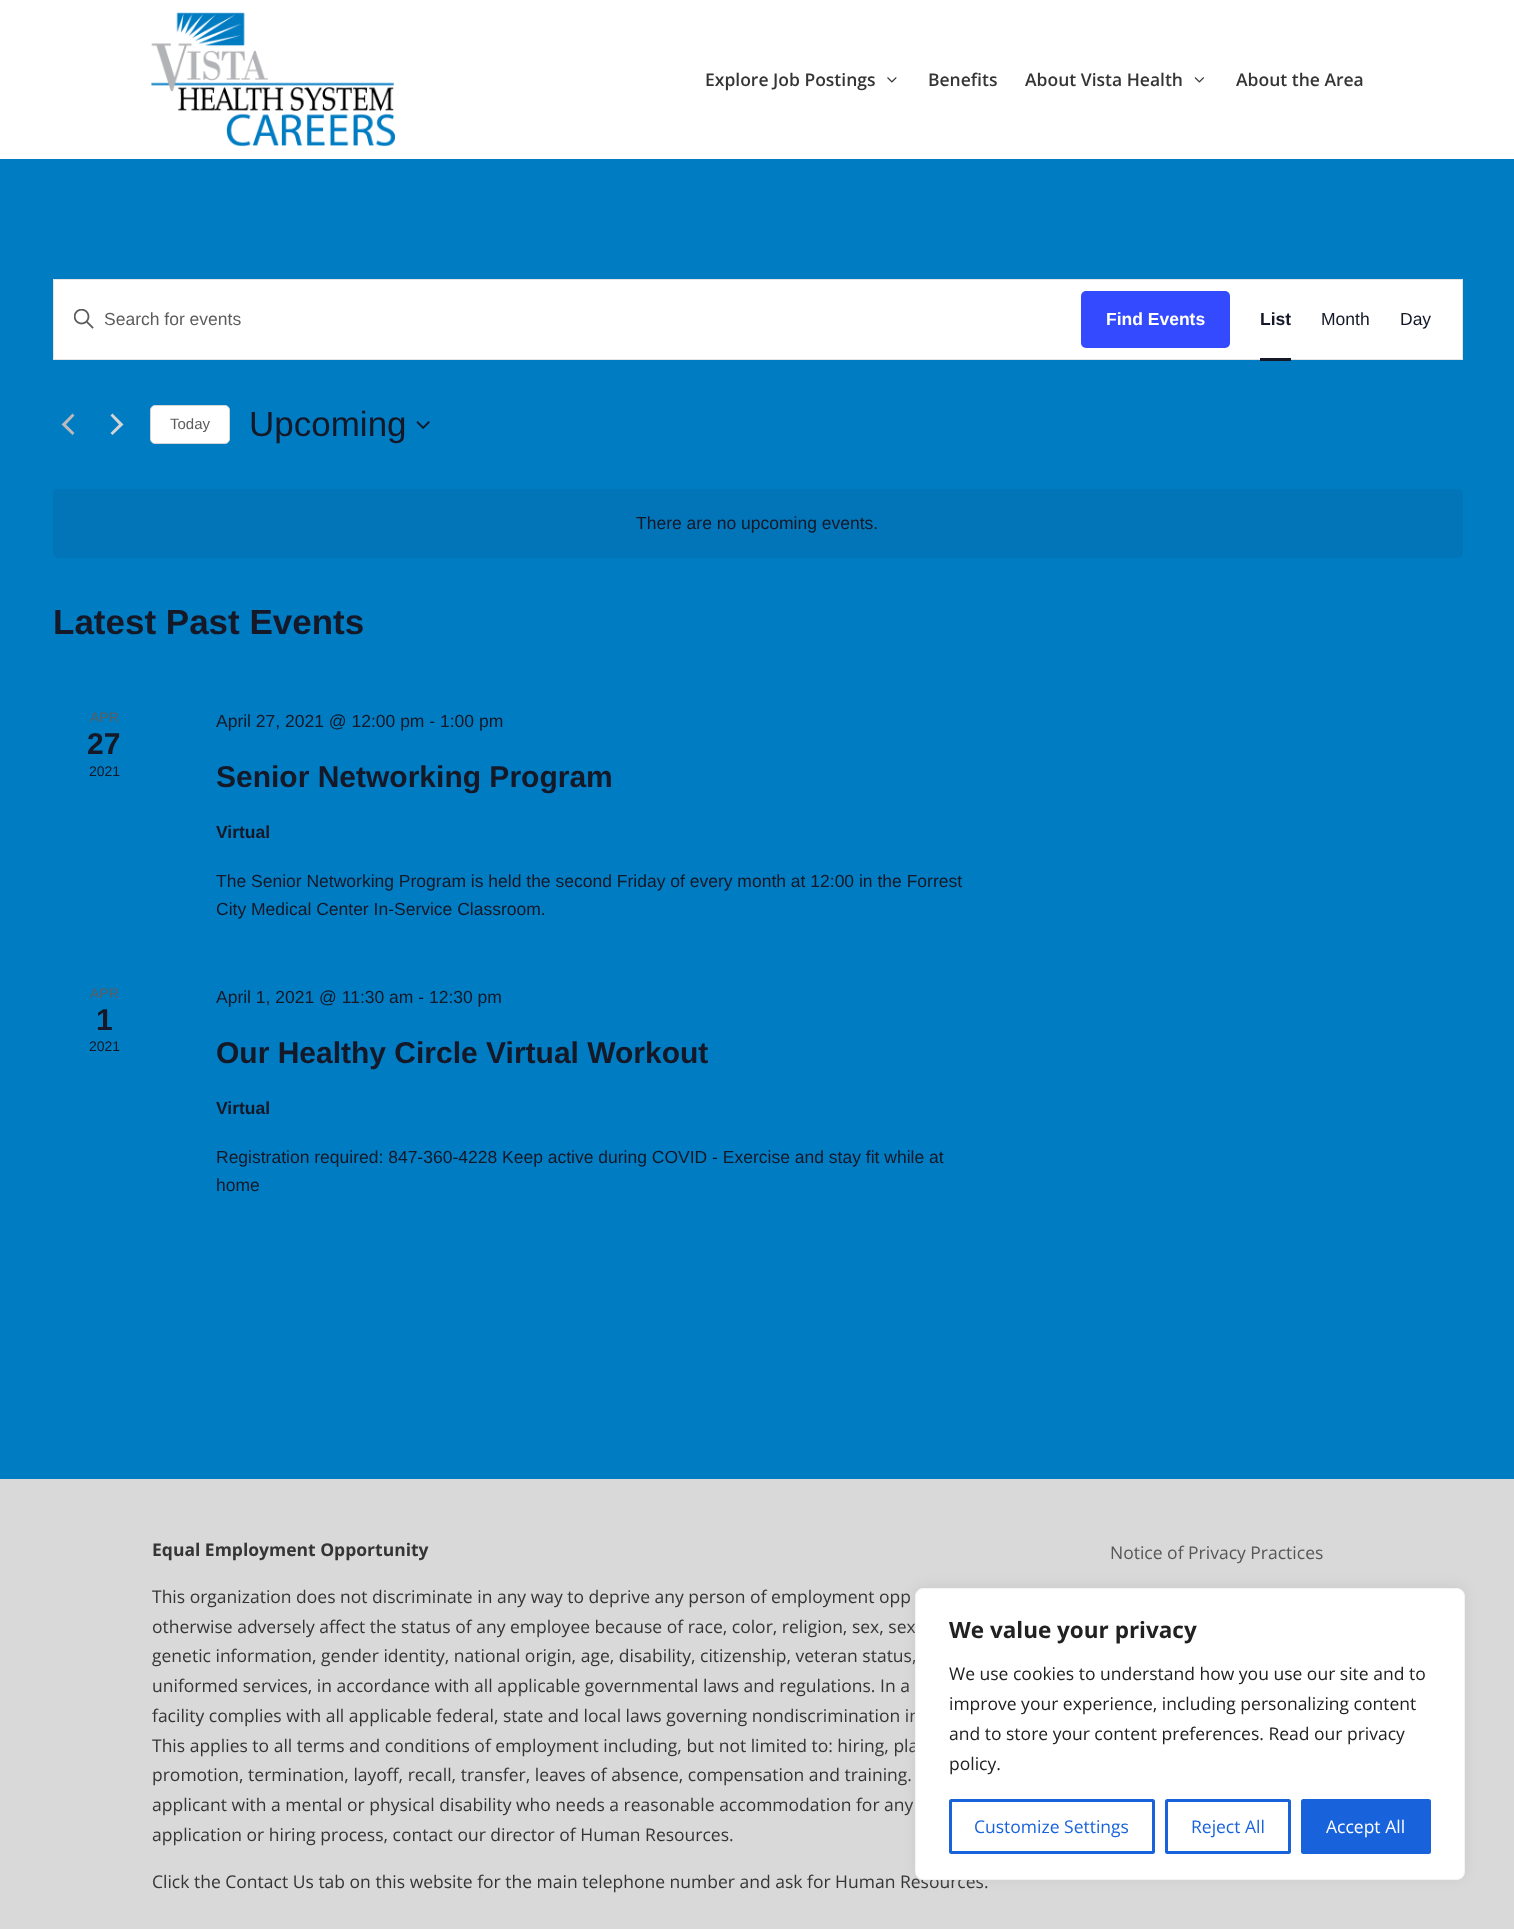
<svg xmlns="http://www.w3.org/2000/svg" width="1514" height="1929">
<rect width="100%" height="100%" fill="#007cc3"/>
<rect width="1514" height="159" fill="#fff"/>
<image x="151" y="12" width="244" height="135" href="media/1.png"/>
<text x="705" y="86" style="font-family:Open Sans;font-size:17.5px;font-weight:600;fill:#353535">Explore Job Postings</text>
<image x="887" y="77" width="10" height="6" href="media/2.png"/>
<text x="928" y="86" style="font-family:Open Sans;font-size:17.5px;font-weight:600;fill:#353535">Benefits</text>
<text x="1025" y="86" style="font-family:Open Sans;font-size:17.5px;font-weight:600;fill:#353535">About Vista Health</text>
<image x="1194" y="77" width="10" height="6" href="media/3.png"/>
<text x="1236" y="86" style="font-family:Open Sans;font-size:17.5px;font-weight:600;fill:#353535">About the Area</text>
<rect x="53.5" y="279.5" width="1409" height="80" fill="#fff" stroke="#e4e4e4"/>
<image x="74" y="309" width="20" height="20" href="media/4.png"/>
<text x="104" y="325" style="font-family:Liberation Sans;font-size:17.5px;fill:#5d5d5d">Search for events</text>
<rect x="1081" y="291" width="149" height="57" rx="5" fill="#334aff"/>
<text x="1106" y="325" style="font-family:Liberation Sans;font-size:17.5px;font-weight:bold;fill:#fff">Find Events</text>
<text x="1260" y="325" style="font-family:Liberation Sans;font-size:17.5px;font-weight:bold;fill:#141827">List</text>
<rect x="1260" y="358" width="31" height="3" fill="#141827"/>
<text x="1321" y="325" style="font-family:Liberation Sans;font-size:17.5px;fill:#141827">Month</text>
<text x="1400" y="325" style="font-family:Liberation Sans;font-size:17.5px;fill:#141827">Day</text>
<path d="M74.5 433l-2 2l-11-10.5l11-11l2 2l-8.5 9z" fill="#bababa"/>
<path d="M110.5 415.5l2-2l11 11l-11 10.5l-2-2l8.5-8.5z" fill="#d5d5d5"/>
<rect x="150.5" y="405.5" width="79" height="38" rx="4.5" fill="#fff" stroke="#d5d5d5"/>
<text x="170" y="429" style="font-family:Liberation Sans;font-size:15px;fill:#5d5d5d">Today</text>
<text x="249" y="436" style="font-family:Liberation Sans;font-size:35px;fill:#141827">Upcoming</text>
<image x="416" y="421" width="14" height="8" href="media/5.png"/>
<rect x="53" y="489" width="1410" height="69" rx="5" fill="#0175b8"/>
<text x="636" y="529" style="font-family:Liberation Sans;font-size:17.5px;fill:#141827">There are no upcoming events.</text>
<text x="53" y="634" style="font-family:Liberation Sans;font-size:35px;font-weight:bold;fill:#141827">Latest Past Events</text>
<text x="90" y="722" style="font-family:Liberation Sans;font-size:14px;fill:#5d5d5d">APR</text>
<text x="87" y="754" style="font-family:Liberation Sans;font-size:30px;font-weight:bold;fill:#141827">27</text>
<text x="89" y="776" style="font-family:Liberation Sans;font-size:14px;fill:#141827">2021</text>
<text x="216" y="727" style="font-family:Liberation Sans;font-size:17.5px;fill:#141827">April 27, 2021 @ 12:00 pm - 1:00 pm</text>
<text x="216" y="787" style="font-family:Liberation Sans;font-size:30px;font-weight:bold;fill:#141827">Senior Networking Program</text>
<text x="216" y="838" style="font-family:Liberation Sans;font-size:17.5px;font-weight:bold;fill:#141827">Virtual</text>
<text x="216" y="887" style="font-family:Liberation Sans;font-size:17.5px;fill:#141827">The Senior Networking Program is held the second Friday of every month at 12:00 in the Forrest</text>
<text x="216" y="915" style="font-family:Liberation Sans;font-size:17.5px;fill:#141827">City Medical Center In-Service Classroom.</text>
<text x="90" y="998" style="font-family:Liberation Sans;font-size:14px;fill:#5d5d5d">APR</text>
<text x="96" y="1030" style="font-family:Liberation Sans;font-size:30px;font-weight:bold;fill:#141827">1</text>
<text x="89" y="1051" style="font-family:Liberation Sans;font-size:14px;fill:#141827">2021</text>
<text x="216" y="1003" style="font-family:Liberation Sans;font-size:17.5px;fill:#141827">April 1, 2021 @ 11:30 am - 12:30 pm</text>
<text x="216" y="1063" style="font-family:Liberation Sans;font-size:30px;font-weight:bold;fill:#141827">Our Healthy Circle Virtual Workout</text>
<text x="216" y="1114" style="font-family:Liberation Sans;font-size:17.5px;font-weight:bold;fill:#141827">Virtual</text>
<text x="216" y="1163" style="font-family:Liberation Sans;font-size:17.5px;fill:#141827">Registration required: 847-360-4228 Keep active during COVID - Exercise and stay fit while at</text>
<text x="216" y="1191" style="font-family:Liberation Sans;font-size:17.5px;fill:#141827">home</text>
<rect y="1479" width="1514" height="450" fill="#d9d9d9"/>
<text x="152" y="1556" style="font-family:Open Sans;font-size:17.5px;font-weight:bold;fill:#353535">Equal Employment Opportunity</text>
<text x="152" y="1603" style="font-family:Open Sans;font-size:17.5px;fill:#353535">This organization does not discriminate in any way to deprive any person of employment opp</text>
<text x="152" y="1633" style="font-family:Open Sans;font-size:17.5px;fill:#353535">otherwise adversely affect the status of any employee because of race, color, religion, sex, sex</text>
<text x="152" y="1662" style="font-family:Open Sans;font-size:17.5px;fill:#353535">genetic information, gender identity, national origin, age, disability, citizenship, veteran status,</text>
<text x="152" y="1692" style="font-family:Open Sans;font-size:17.5px;fill:#353535">uniformed services, in accordance with all applicable governmental laws and regulations. In a</text>
<text x="152" y="1722" style="font-family:Open Sans;font-size:17.5px;fill:#353535">facility complies with all applicable federal, state and local laws governing nondiscrimination in</text>
<text x="152" y="1752" style="font-family:Open Sans;font-size:17.5px;fill:#353535">This applies to all terms and conditions of employment including, but not limited to: hiring, pla</text>
<text x="152" y="1781" style="font-family:Open Sans;font-size:17.5px;fill:#353535">promotion, termination, layoff, recall, transfer, leaves of absence, compensation and training.</text>
<text x="152" y="1811" style="font-family:Open Sans;font-size:17.5px;fill:#353535">applicant with a mental or physical disability who needs a reasonable accommodation for any</text>
<text x="152" y="1841" style="font-family:Open Sans;font-size:17.5px;fill:#353535">application or hiring process, contact our director of Human Resources.</text>
<text x="152" y="1888" style="font-family:Open Sans;font-size:17.5px;fill:#353535">Click the Contact Us tab on this website for the main telephone number and ask for Human Resources.</text>
<text x="1110" y="1559" style="font-family:Open Sans;font-size:17.5px;fill:#575757">Notice of Privacy Practices</text>
<rect x="915" y="1586" width="550" height="293" rx="8" fill="#acabab4d" filter="blur(6px)"/>
<rect x="915.5" y="1588.5" width="549" height="291" rx="7.5" fill="#fff" stroke="#f4f4f4"/>
<text x="949" y="1638" style="font-family:Open Sans;font-size:22.5px;font-weight:bold;fill:#212121">We value your privacy</text>
<text x="949" y="1680" style="font-family:Open Sans;font-size:17.5px;fill:#212121">We use cookies to understand how you use our site and to</text>
<text x="949" y="1710" style="font-family:Open Sans;font-size:17.5px;fill:#212121">improve your experience, including personalizing content</text>
<text x="949" y="1740" style="font-family:Open Sans;font-size:17.5px;fill:#212121">and to store your content preferences. Read our privacy</text>
<text x="949" y="1770" style="font-family:Open Sans;font-size:17.5px;fill:#212121">policy.</text>
<rect x="950.5" y="1800.5" width="203" height="52" rx="1" fill="none" stroke="#1863dc" stroke-width="3"/>
<text x="974" y="1833" style="font-family:Open Sans;font-size:17.5px;fill:#1863dc">Customize Settings</text>
<rect x="1166.5" y="1800.5" width="123" height="52" rx="1" fill="none" stroke="#1863dc" stroke-width="3"/>
<text x="1191" y="1833" style="font-family:Open Sans;font-size:17.5px;fill:#1863dc">Reject All</text>
<rect x="1302.5" y="1800.5" width="127" height="52" rx="1" fill="#1863dc" stroke="#1863dc" stroke-width="3"/>
<text x="1326" y="1833" style="font-family:Open Sans;font-size:17.5px;fill:#fff">Accept All</text>
</svg>
